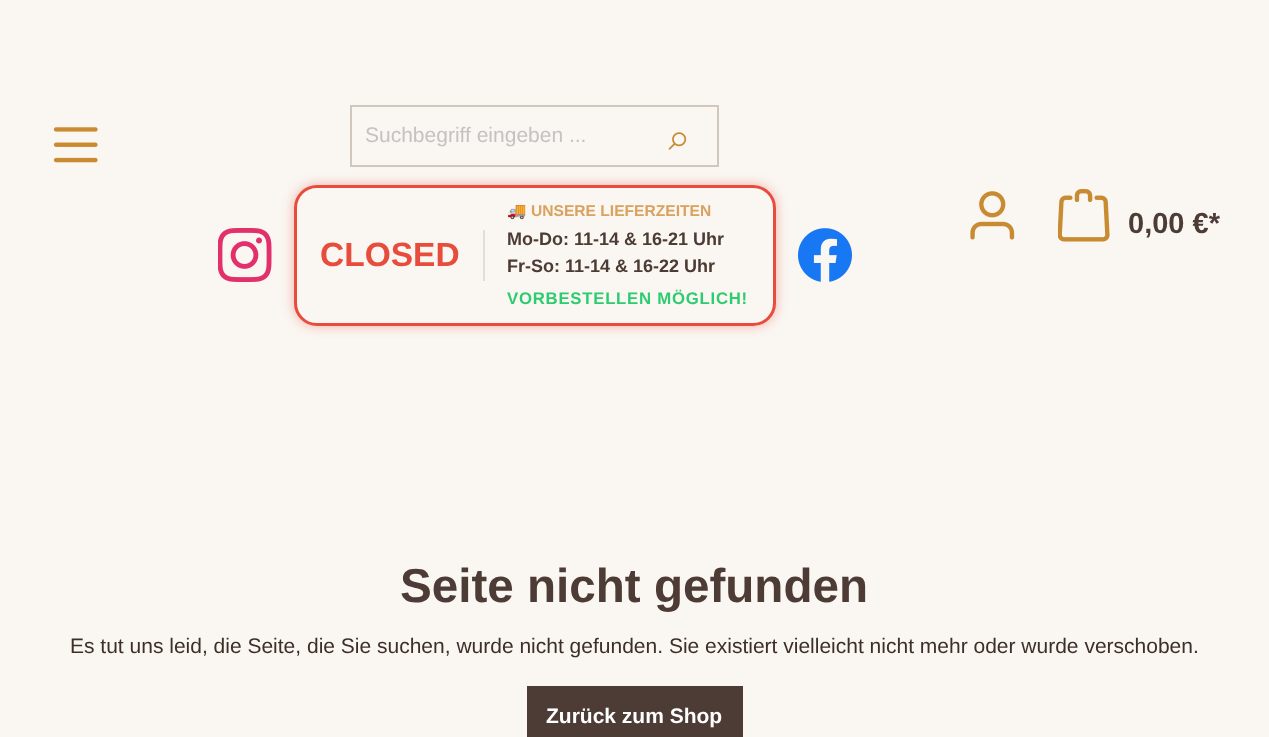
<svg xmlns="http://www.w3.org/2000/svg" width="1269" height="737">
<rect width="100%" height="100%" fill="#faf6f1"/>
<image x="53" y="127" width="45" height="36" href="media/1.png"/>
<rect x="350" y="105" width="369" height="2" fill="#d1c7bd"/>
<rect x="350" y="165" width="300" height="2" fill="#d1c7bd"/>
<rect x="350" y="105" width="2" height="62" fill="#d1c7bd"/>
<text x="365" y="142" style="font-family:Liberation Sans;font-size:21px;fill:#c3c3c3">Suchbegriff eingeben ...</text>
<rect x="294" y="185" width="482" height="141" rx="23" fill="#e74c3c66" filter="blur(6px)"/>
<rect x="717" y="105" width="2" height="62" fill="#d1c7bd"/>
<rect x="648" y="165" width="71" height="2" fill="#d1c7bd"/>
<image x="668" y="132" width="19" height="18" href="media/2.png"/>
<image x="218" y="228" width="54" height="54" href="media/3.png"/>
<rect x="295.5" y="186.5" width="479" height="138" rx="21.5" fill="#faf6f1" stroke="#e74c3c" stroke-width="3"/>
<rect x="483" y="230" width="2" height="51" fill="#e1ddd9"/>
<text x="320" y="266" style="font-family:Liberation Sans;font-size:33.5px;font-weight:bold;fill:#e74c3c">CLOSED</text>
<text x="507" y="216" style="font-family:Noto Color Emoji;font-size:15.6px;font-weight:bold;fill:#d9a25f">🚚</text>
<text x="531" y="216" style="font-family:Liberation Sans;font-size:15.6px;font-weight:bold;fill:#d9a25f">UNSERE LIEFERZEITEN</text>
<text x="507" y="245" style="font-family:Liberation Sans;font-size:18px;font-weight:bold;fill:#4d3b35">Mo-Do: 11-14 &amp; 16-21 Uhr</text>
<text x="507" y="272" style="font-family:Liberation Sans;font-size:18px;font-weight:bold;fill:#4d3b35">Fr-So: 11-14 &amp; 16-22 Uhr</text>
<text x="507" y="304" style="font-family:Liberation Sans;font-size:16.75px;font-weight:bold;letter-spacing:0.75px;fill:#2ecc71">VORBESTELLEN MÖGLICH!</text>
<image x="798" y="228" width="54" height="54" href="media/4.png"/>
<image x="970" y="191" width="45" height="49" href="media/5.png"/>
<image x="1058" y="189" width="52" height="53" href="media/6.png"/>
<text x="1128" y="233" style="font-family:Liberation Sans;font-size:29px;font-weight:bold;fill:#4d3b35">0,00 €*</text>
<text x="400" y="602" style="font-family:Liberation Sans;font-size:47.6px;font-weight:bold;fill:#4d3b35">Seite nicht gefunden</text>
<text x="70" y="653" style="font-family:Liberation Sans;font-size:21px;fill:#3d2e29">Es tut uns leid, die Seite, die Sie suchen, wurde nicht gefunden. Sie existiert vielleicht nicht mehr oder wurde verschoben.</text>
<rect x="527" y="686" width="216" height="51" fill="#4d3b35"/>
<text x="546" y="723" style="font-family:Liberation Sans;font-size:21px;font-weight:bold;fill:#fff">Zurück zum Shop</text>
</svg>
